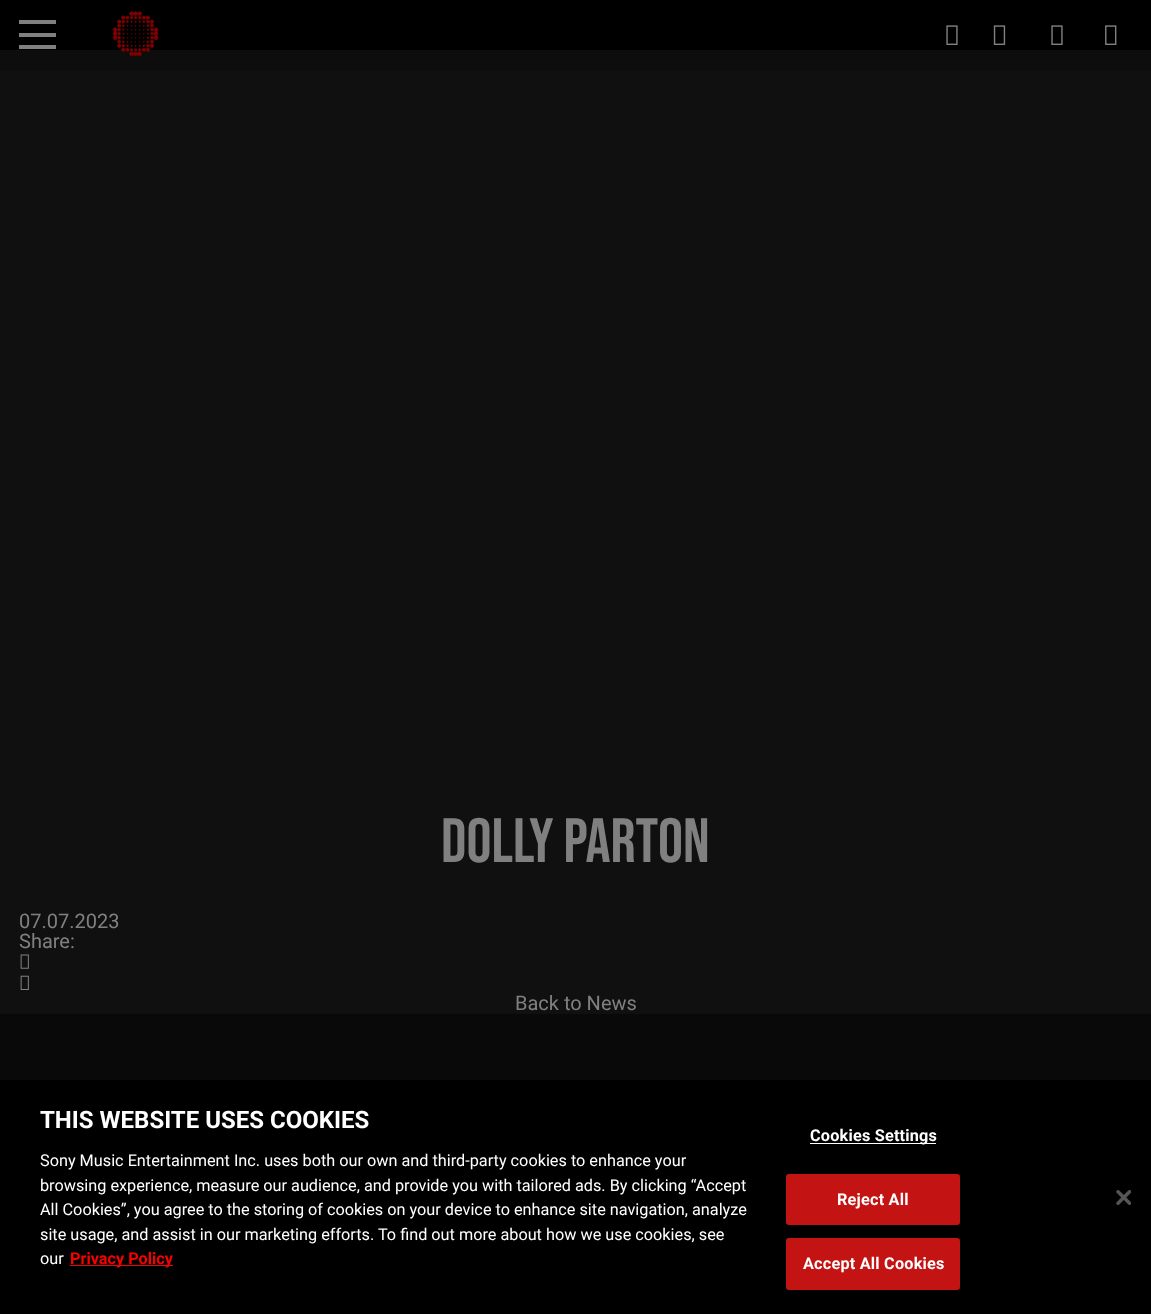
<svg xmlns="http://www.w3.org/2000/svg" width="1151" height="1314">
<rect width="100%" height="100%" fill="#101010"/>
<rect y="50" width="1151" height="21" fill="#0d0d0d"/>
<rect width="1151" height="50" fill="#000"/>
<rect x="19" y="45" width="37" height="4" fill="#808080"/>
<rect x="19" y="20" width="37" height="4" fill="#808080"/>
<rect x="19" y="33" width="37" height="4" fill="#808080"/>
<image x="112" y="10" width="47" height="47" href="media/1.png"/>
<image x="946" y="25" width="12" height="20" href="media/2.png"/>
<image x="993" y="25" width="13" height="20" href="media/3.png"/>
<image x="1051" y="25" width="12" height="20" href="media/2.png"/>
<image x="1105" y="25" width="12" height="20" href="media/4.png"/>
<text x="441" y="862" style="font-family:Bebas Neue;font-size:62.5px;fill:#808080">DOLLY PARTON</text>
<text x="19" y="928" style="font-family:Roboto;font-size:20px;fill:#808080">07.07.2023</text>
<text x="19" y="948" style="font-family:Roboto;font-size:20px;fill:#808080">Share:</text>
<image x="20" y="954" width="9" height="15" href="media/5.png"/>
<image x="20" y="975" width="9" height="15" href="media/6.png"/>
<text x="515" y="1010" style="font-family:Roboto;font-size:20px;fill:#808080">Back to News</text>
<rect y="1014" width="1151" height="66" fill="#090909"/>
<rect y="1080" width="1151" height="234" fill="#000"/>
<text x="40" y="1128" style="font-family:Roboto;font-size:24px;font-weight:bold;fill:#fff">THIS WEBSITE USES COOKIES</text>
<text x="40" y="1166" style="font-family:Roboto;font-size:16.25px;fill:#fff">Sony Music Entertainment Inc. uses both our own and third-party cookies to enhance your</text>
<text x="40" y="1191" style="font-family:Roboto;font-size:16.25px;fill:#fff">browsing experience, measure our audience, and provide you with tailored ads. By clicking “Accept</text>
<text x="40" y="1215" style="font-family:Roboto;font-size:16.25px;fill:#fff">All Cookies”, you agree to the storing of cookies on your device to enhance site navigation, analyze</text>
<text x="40" y="1240" style="font-family:Roboto;font-size:16.25px;fill:#fff">site usage, and assist in our marketing efforts. To find out more about how we use cookies, see</text>
<text x="40" y="1264" style="font-family:Roboto;font-size:16.25px;fill:#fff">our</text>
<rect x="70" y="1265" width="103" height="1" fill="#f90000"/>
<text x="70" y="1264" style="font-family:Roboto;font-size:16.25px;font-weight:bold;fill:#f90000">Privacy Policy</text>
<rect x="810" y="1143" width="126" height="1" fill="#fff"/>
<text x="810" y="1141" style="font-family:Roboto;font-size:16.25px;font-weight:bold;letter-spacing:0.2px;fill:#fff">Cookies Settings</text>
<rect x="786.5" y="1174.5" width="173" height="50" rx="2" fill="#c31313" stroke="#c31313"/>
<text x="837" y="1205" style="font-family:Roboto;font-size:16.25px;font-weight:bold;letter-spacing:0.2px;fill:#fff">Reject All</text>
<rect x="786.5" y="1238.5" width="173" height="51" rx="2" fill="#c31313" stroke="#c31313"/>
<text x="803" y="1269" style="font-family:Roboto;font-size:16.25px;font-weight:bold;letter-spacing:0.2px;fill:#fff">Accept All Cookies</text>
<image x="1116" y="1190" width="15" height="15" href="media/7.png"/>
</svg>
